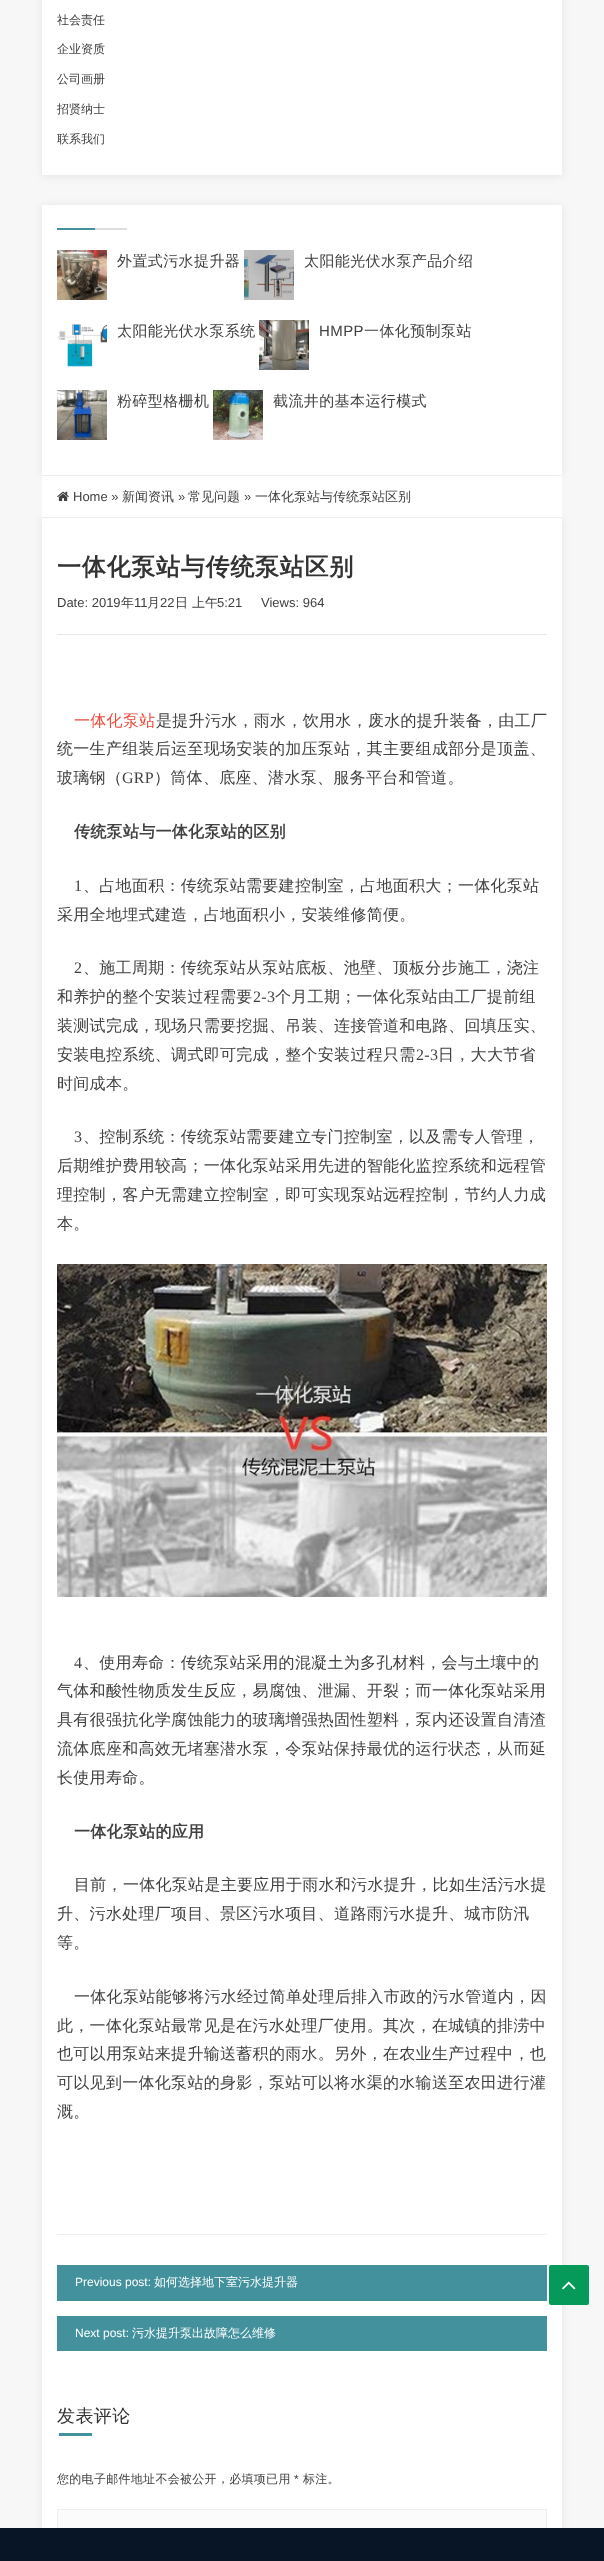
<svg xmlns="http://www.w3.org/2000/svg" width="604" height="2561">
<rect width="100%" height="100%" fill="#f7f7f7"/>
<rect x="42" y="-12" width="520" height="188" fill="#00000014" filter="blur(4px)"/>
<rect x="42" width="520" height="175" fill="#fff"/>
<text x="57" y="24" style="font-family:WenQuanYi Zen Hei;font-size:12px;font-weight:500;fill:#414141">社会责任</text>
<text x="57" y="53" style="font-family:WenQuanYi Zen Hei;font-size:12px;font-weight:500;fill:#414141">企业资质</text>
<text x="57" y="83" style="font-family:WenQuanYi Zen Hei;font-size:12px;font-weight:500;fill:#414141">公司画册</text>
<text x="57" y="113" style="font-family:WenQuanYi Zen Hei;font-size:12px;font-weight:500;fill:#414141">招贤纳士</text>
<text x="57" y="143" style="font-family:WenQuanYi Zen Hei;font-size:12px;font-weight:500;fill:#414141">联系我们</text>
<rect x="42" y="206" width="520" height="270" fill="#00000014" filter="blur(4px)"/>
<rect x="42" y="205" width="520" height="270" fill="#fff"/>
<rect x="57" y="228" width="38" height="2" fill="#43919d"/>
<rect x="95" y="228" width="32" height="2" fill="#ddd"/>
<image x="57" y="250" width="50" height="50" href="media/1.png"/>
<text x="117" y="266" style="font-family:WenQuanYi Zen Hei;font-size:15px;font-weight:500;letter-spacing:0.4px;fill:#414141">外置式污水提升器</text>
<image x="244" y="250" width="50" height="50" href="media/2.png"/>
<text x="304" y="266" style="font-family:WenQuanYi Zen Hei;font-size:15px;font-weight:500;letter-spacing:0.4px;fill:#414141">太阳能光伏水泵产品介绍</text>
<image x="57" y="324" width="50" height="43" href="media/3.png"/>
<text x="117" y="336" style="font-family:WenQuanYi Zen Hei;font-size:15px;font-weight:500;letter-spacing:0.4px;fill:#414141">太阳能光伏水泵系统</text>
<image x="259" y="320" width="50" height="50" href="media/4.png"/>
<text x="319" y="336" style="font-family:Liberation Sans;font-size:15px;letter-spacing:0.4px;fill:#414141">HMPP</text>
<text x="364" y="336" style="font-family:WenQuanYi Zen Hei;font-size:15px;font-weight:500;letter-spacing:0.4px;fill:#414141">一体化预制泵站</text>
<image x="57" y="390" width="50" height="50" href="media/5.png"/>
<text x="117" y="406" style="font-family:WenQuanYi Zen Hei;font-size:15px;font-weight:500;letter-spacing:0.4px;fill:#414141">粉碎型格栅机</text>
<image x="213" y="390" width="50" height="50" href="media/6.png"/>
<text x="273" y="406" style="font-family:WenQuanYi Zen Hei;font-size:15px;font-weight:500;letter-spacing:0.4px;fill:#414141">截流井的基本运行模式</text>
<rect x="42" y="519" width="520" height="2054" fill="#00000014" filter="blur(4px)"/>
<rect x="42" y="476" width="520" height="41" fill="#fff"/>
<rect x="42" y="517" width="520" height="1" fill="#eee"/>
<image x="57" y="491" width="12" height="10" href="media/7.png"/>
<text x="73" y="501" style="font-family:Liberation Sans;font-size:13px;fill:#414141">Home »</text>
<text x="122" y="501" style="font-family:WenQuanYi Zen Hei;font-size:13px;font-weight:500;fill:#414141">新闻资讯</text>
<text x="178" y="501" style="font-family:Liberation Sans;font-size:13px;fill:#414141">»</text>
<text x="188" y="501" style="font-family:WenQuanYi Zen Hei;font-size:13px;font-weight:500;fill:#414141">常见问题</text>
<text x="244" y="501" style="font-family:Liberation Sans;font-size:13px;fill:#414141">»</text>
<text x="255" y="501" style="font-family:WenQuanYi Zen Hei;font-size:13px;font-weight:500;fill:#414141">一体化泵站与传统泵站区别</text>
<rect x="42" y="518" width="520" height="2010" fill="#fff"/>
<text x="57" y="575" style="font-family:WenQuanYi Zen Hei;font-size:24px;font-weight:bold;letter-spacing:0.75px;fill:#333">一体化泵站与传统泵站区别</text>
<rect x="57" y="634" width="490" height="1" fill="#e7e7e7"/>
<text x="57" y="607" style="font-family:Liberation Sans;font-size:13px;fill:#414141">Date: 2019</text>
<text x="121" y="607" style="font-family:WenQuanYi Zen Hei;font-size:13px;font-weight:500;fill:#414141">年</text>
<text x="134" y="607" style="font-family:Liberation Sans;font-size:13px;fill:#414141">11</text>
<text x="147" y="607" style="font-family:WenQuanYi Zen Hei;font-size:13px;font-weight:500;fill:#414141">月</text>
<text x="160" y="607" style="font-family:Liberation Sans;font-size:13px;fill:#414141">22</text>
<text x="175" y="607" style="font-family:WenQuanYi Zen Hei;font-size:13px;font-weight:500;fill:#414141">日 上午</text>
<text x="217" y="607" style="font-family:Liberation Sans;font-size:13px;fill:#414141">5:21</text>
<text x="261" y="607" style="font-family:Liberation Sans;font-size:13px;fill:#414141">Views: 964</text>
<text x="74" y="726" style="font-family:WenQuanYi Zen Hei;font-size:16px;font-weight:500;letter-spacing:0.3px;fill:#e74c3c">一体化泵站</text>
<text x="156" y="726" style="font-family:WenQuanYi Zen Hei;font-size:16px;font-weight:500;letter-spacing:0.3px;fill:#414141">是提升污水，雨水，饮用水，废水的提升装备，由工厂</text>
<text x="57" y="754" style="font-family:WenQuanYi Zen Hei;font-size:16px;font-weight:500;letter-spacing:0.3px;fill:#414141">统一生产组装后运至现场安装的加压泵站，其主要组成部分是顶盖、</text>
<text x="57" y="783" style="font-family:WenQuanYi Zen Hei;font-size:16px;font-weight:500;letter-spacing:0.3px;fill:#414141">玻璃钢（</text>
<text x="122" y="783" style="font-family:Liberation Serif;font-size:16px;letter-spacing:0.3px;fill:#414141">GRP</text>
<text x="154" y="783" style="font-family:WenQuanYi Zen Hei;font-size:16px;font-weight:500;letter-spacing:0.3px;fill:#414141">）筒体、底座、潜水泵、服务平台和管道。</text>
<text x="74" y="837" style="font-family:WenQuanYi Zen Hei;font-size:16px;font-weight:bold;letter-spacing:0.3px;fill:#414141">传统泵站与一体化泵站的区别</text>
<text x="74" y="891" style="font-family:Liberation Serif;font-size:16px;letter-spacing:0.3px;fill:#414141">1</text>
<text x="83" y="891" style="font-family:WenQuanYi Zen Hei;font-size:16px;font-weight:500;letter-spacing:0.3px;fill:#414141">、占地面积：传统泵站需要建控制室，占地面积大；一体化泵站</text>
<text x="57" y="920" style="font-family:WenQuanYi Zen Hei;font-size:16px;font-weight:500;letter-spacing:0.3px;fill:#414141">采用全地埋式建造，占地面积小，安装维修简便。</text>
<text x="74" y="973" style="font-family:Liberation Serif;font-size:16px;letter-spacing:0.3px;fill:#414141">2</text>
<text x="83" y="973" style="font-family:WenQuanYi Zen Hei;font-size:16px;font-weight:500;letter-spacing:0.3px;fill:#414141">、施工周期：传统泵站从泵站底板、池壁、顶板分步施工，浇注</text>
<text x="57" y="1002" style="font-family:WenQuanYi Zen Hei;font-size:16px;font-weight:500;letter-spacing:0.3px;fill:#414141">和养护的整个安装过程需要</text>
<text x="253" y="1002" style="font-family:Liberation Serif;font-size:16px;letter-spacing:0.3px;fill:#414141">2-3</text>
<text x="275" y="1002" style="font-family:WenQuanYi Zen Hei;font-size:16px;font-weight:500;letter-spacing:0.3px;fill:#414141">个月工期；一体化泵站由工厂提前组</text>
<text x="57" y="1031" style="font-family:WenQuanYi Zen Hei;font-size:16px;font-weight:500;letter-spacing:0.3px;fill:#414141">装测试完成，现场只需要挖掘、吊装、连接管道和电路、回填压实、</text>
<text x="57" y="1060" style="font-family:WenQuanYi Zen Hei;font-size:16px;font-weight:500;letter-spacing:0.3px;fill:#414141">安装电控系统、调式即可完成，整个安装过程只需</text>
<text x="416" y="1060" style="font-family:Liberation Serif;font-size:16px;letter-spacing:0.3px;fill:#414141">2-3</text>
<text x="438" y="1060" style="font-family:WenQuanYi Zen Hei;font-size:16px;font-weight:500;letter-spacing:0.3px;fill:#414141">日，大大节省</text>
<text x="57" y="1089" style="font-family:WenQuanYi Zen Hei;font-size:16px;font-weight:500;letter-spacing:0.3px;fill:#414141">时间成本。</text>
<text x="74" y="1142" style="font-family:Liberation Serif;font-size:16px;letter-spacing:0.3px;fill:#414141">3</text>
<text x="83" y="1142" style="font-family:WenQuanYi Zen Hei;font-size:16px;font-weight:500;letter-spacing:0.3px;fill:#414141">、控制系统：传统泵站需要建立专门控制室，以及需专人管理，</text>
<text x="57" y="1171" style="font-family:WenQuanYi Zen Hei;font-size:16px;font-weight:500;letter-spacing:0.3px;fill:#414141">后期维护费用较高；一体化泵站采用先进的智能化监控系统和远程管</text>
<text x="57" y="1200" style="font-family:WenQuanYi Zen Hei;font-size:16px;font-weight:500;letter-spacing:0.3px;fill:#414141">理控制，客户无需建立控制室，即可实现泵站远程控制，节约人力成</text>
<text x="57" y="1229" style="font-family:WenQuanYi Zen Hei;font-size:16px;font-weight:500;letter-spacing:0.3px;fill:#414141">本。</text>
<image x="57" y="1264" width="490" height="333" href="media/8.png"/>
<text x="74" y="1668" style="font-family:Liberation Serif;font-size:16px;letter-spacing:0.3px;fill:#414141">4</text>
<text x="83" y="1668" style="font-family:WenQuanYi Zen Hei;font-size:16px;font-weight:500;letter-spacing:0.3px;fill:#414141">、使用寿命：传统泵站采用的混凝土为多孔材料，会与土壤中的</text>
<text x="57" y="1696" style="font-family:WenQuanYi Zen Hei;font-size:16px;font-weight:500;letter-spacing:0.3px;fill:#414141">气体和酸性物质发生反应，易腐蚀、泄漏、开裂；而一体化泵站采用</text>
<text x="57" y="1725" style="font-family:WenQuanYi Zen Hei;font-size:16px;font-weight:500;letter-spacing:0.3px;fill:#414141">具有很强抗化学腐蚀能力的玻璃增强热固性塑料，泵内还设置自清渣</text>
<text x="57" y="1754" style="font-family:WenQuanYi Zen Hei;font-size:16px;font-weight:500;letter-spacing:0.3px;fill:#414141">流体底座和高效无堵塞潜水泵，令泵站保持最优的运行状态，从而延</text>
<text x="57" y="1783" style="font-family:WenQuanYi Zen Hei;font-size:16px;font-weight:500;letter-spacing:0.3px;fill:#414141">长使用寿命。</text>
<text x="74" y="1837" style="font-family:WenQuanYi Zen Hei;font-size:16px;font-weight:bold;letter-spacing:0.3px;fill:#414141">一体化泵站的应用</text>
<text x="74" y="1890" style="font-family:WenQuanYi Zen Hei;font-size:16px;font-weight:500;letter-spacing:0.3px;fill:#414141">目前，一体化泵站是主要应用于雨水和污水提升，比如生活污水提</text>
<text x="57" y="1919" style="font-family:WenQuanYi Zen Hei;font-size:16px;font-weight:500;letter-spacing:0.3px;fill:#414141">升、污水处理厂项目、景区污水项目、道路雨污水提升、城市防汛</text>
<text x="57" y="1948" style="font-family:WenQuanYi Zen Hei;font-size:16px;font-weight:500;letter-spacing:0.3px;fill:#414141">等。</text>
<text x="74" y="2002" style="font-family:WenQuanYi Zen Hei;font-size:16px;font-weight:500;letter-spacing:0.3px;fill:#414141">一体化泵站能够将污水经过简单处理后排入市政的污水管道内，因</text>
<text x="57" y="2031" style="font-family:WenQuanYi Zen Hei;font-size:16px;font-weight:500;letter-spacing:0.3px;fill:#414141">此，一体化泵站最常见是在污水处理厂使用。其次，在城镇的排涝中</text>
<text x="57" y="2059" style="font-family:WenQuanYi Zen Hei;font-size:16px;font-weight:500;letter-spacing:0.3px;fill:#414141">也可以用泵站来提升输送蓄积的雨水。另外，在农业生产过程中，也</text>
<text x="57" y="2088" style="font-family:WenQuanYi Zen Hei;font-size:16px;font-weight:500;letter-spacing:0.3px;fill:#414141">可以见到一体化泵站的身影，泵站可以将水渠的水输送至农田进行灌</text>
<text x="57" y="2117" style="font-family:WenQuanYi Zen Hei;font-size:16px;font-weight:500;letter-spacing:0.3px;fill:#414141">溉。</text>
<rect x="57" y="2234" width="490" height="1" fill="#eee"/>
<rect x="57" y="2265" width="490" height="36" fill="#43919d"/>
<text x="75" y="2286" style="font-family:Liberation Sans;font-size:12px;fill:#fff">Previous post:</text>
<text x="154" y="2286" style="font-family:WenQuanYi Zen Hei;font-size:12px;font-weight:500;fill:#fff">如何选择地下室污水提升器</text>
<rect x="57" y="2316" width="490" height="35" fill="#43919d"/>
<text x="75" y="2337" style="font-family:Liberation Sans;font-size:12px;fill:#fff">Next post:</text>
<text x="132" y="2337" style="font-family:WenQuanYi Zen Hei;font-size:12px;font-weight:500;fill:#fff">污水提升泵出故障怎么维修</text>
<text x="57" y="2422" style="font-family:WenQuanYi Zen Hei;font-size:18px;font-weight:500;letter-spacing:0.4px;fill:#333">发表评论</text>
<rect x="59" y="2433" width="33" height="3" fill="#43919d"/>
<text x="57" y="2483" style="font-family:WenQuanYi Zen Hei;font-size:12px;font-weight:500;letter-spacing:0.3px;fill:#414141">您的电子邮件地址不会被公开，必填项已用</text>
<text x="294" y="2483" style="font-family:Liberation Sans;font-size:12px;letter-spacing:0.3px;fill:#414141">*</text>
<text x="303" y="2483" style="font-family:WenQuanYi Zen Hei;font-size:12px;font-weight:500;letter-spacing:0.3px;fill:#414141">标注。</text>
<rect x="58" y="2510" width="488" height="18" fill="#fbfbfb"/>
<rect x="57.5" y="2509.5" width="489" height="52" fill="none" stroke="#eee"/>
<rect x="549" y="2265" width="40" height="40" rx="2" fill="#039958fc"/>
<image x="562" y="2281" width="14" height="9" href="media/9.png"/>
<rect y="2528" width="604" height="33" fill="#081526"/>
</svg>
